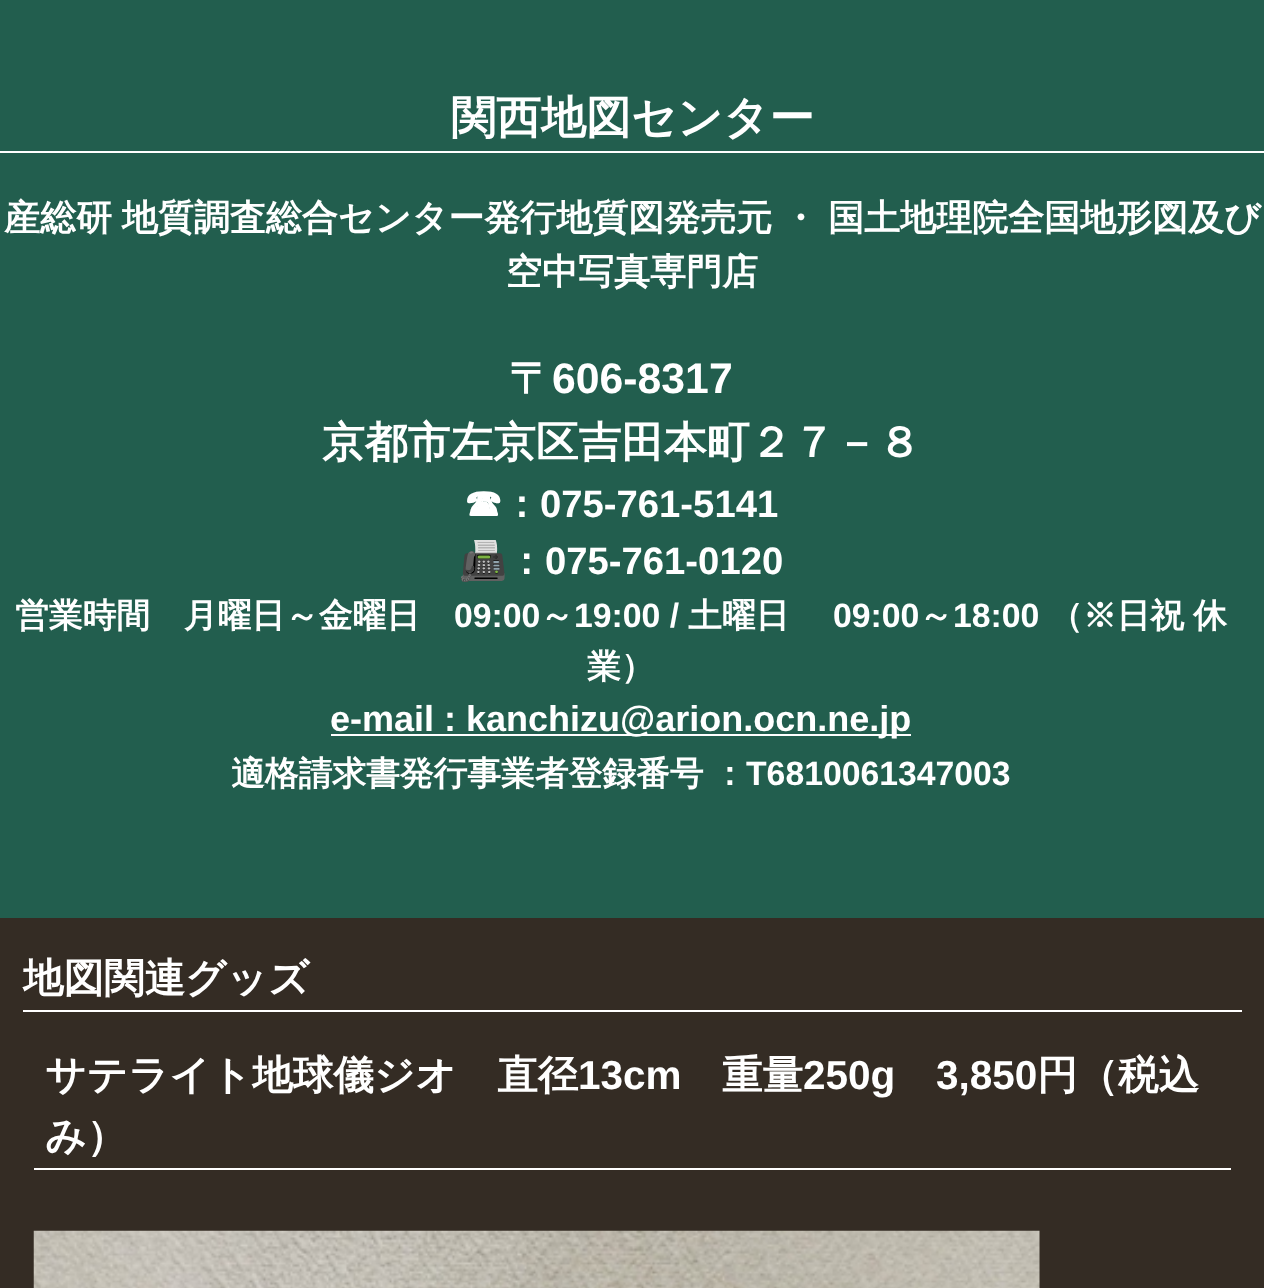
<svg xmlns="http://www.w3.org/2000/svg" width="1264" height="1288">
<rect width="100%" height="100%" fill="#342c24"/>
<rect width="1264" height="918" fill="#225e4e"/>
<rect y="151" width="1264" height="2" fill="#fff"/>
<text x="451" y="133" style="font-family:WenQuanYi Zen Hei;font-size:45px;font-weight:bold;fill:#fff">関西地図センター</text>
<text x="4" y="230" word-spacing="-1" style="font-family:WenQuanYi Zen Hei;font-size:36px;font-weight:bold;fill:#fff">産総研 地質調査総合センター発行地質図発売元 ・ 国土地理院全国地形図及び</text>
<text x="506" y="284" style="font-family:WenQuanYi Zen Hei;font-size:36px;font-weight:bold;fill:#fff">空中写真専門店</text>
<text x="509" y="393" style="font-family:WenQuanYi Zen Hei;font-size:42.75px;font-weight:bold;fill:#fff">〒</text>
<text x="552" y="393" style="font-family:Liberation Sans;font-size:42.75px;font-weight:bold;fill:#fff">606-8317</text>
<text x="322" y="457" style="font-family:WenQuanYi Zen Hei;font-size:42.75px;font-weight:bold;fill:#fff">京都市左京区吉田本町２７－８</text>
<text x="464" y="517" style="font-family:WenQuanYi Zen Hei;font-size:38.25px;font-weight:bold;fill:#fff">☎：</text>
<text x="540" y="517" style="font-family:Liberation Sans;font-size:38.25px;font-weight:bold;fill:#fff">075-761-5141</text>
<text x="459" y="574" style="font-family:Noto Color Emoji;font-size:38.25px;font-weight:bold;fill:#fff">📠</text>
<text x="507" y="574" style="font-family:WenQuanYi Zen Hei;font-size:38.25px;font-weight:bold;fill:#fff">：</text>
<text x="545" y="574" style="font-family:Liberation Sans;font-size:38.25px;font-weight:bold;fill:#fff">075-761-0120</text>
<text x="15" y="627" style="font-family:WenQuanYi Zen Hei;font-size:33.75px;font-weight:bold;fill:#fff">営業時間　月曜日～金曜日</text>
<text x="454" y="627" style="font-family:Liberation Sans;font-size:33.75px;font-weight:bold;fill:#fff">09:00</text>
<text x="540" y="627" style="font-family:WenQuanYi Zen Hei;font-size:33.75px;font-weight:bold;fill:#fff">～</text>
<text x="574" y="627" style="font-family:Liberation Sans;font-size:33.75px;font-weight:bold;fill:#fff">19:00 /</text>
<text x="688" y="627" style="font-family:WenQuanYi Zen Hei;font-size:33.75px;font-weight:bold;fill:#fff">土曜日</text>
<text x="833" y="627" style="font-family:Liberation Sans;font-size:33.75px;font-weight:bold;fill:#fff">09:00</text>
<text x="919" y="627" style="font-family:WenQuanYi Zen Hei;font-size:33.75px;font-weight:bold;fill:#fff">～</text>
<text x="953" y="627" style="font-family:Liberation Sans;font-size:33.75px;font-weight:bold;fill:#fff">18:00</text>
<text x="1049" y="627" style="font-family:WenQuanYi Zen Hei;font-size:33.75px;font-weight:bold;fill:#fff">（※日祝</text>
<text x="1193" y="627" style="font-family:WenQuanYi Zen Hei;font-size:33.75px;font-weight:bold;fill:#fff">休</text>
<text x="587" y="678" style="font-family:WenQuanYi Zen Hei;font-size:33.75px;font-weight:bold;fill:#fff">業）</text>
<rect x="331" y="734" width="580" height="2" fill="#fff"/>
<text x="330" y="731" style="font-family:Liberation Sans;font-size:36px;font-weight:bold;fill:#fff">e-mail : kanchizu@arion.ocn.ne.jp</text>
<text x="231" y="785" word-spacing="-1" style="font-family:WenQuanYi Zen Hei;font-size:33.75px;font-weight:bold;fill:#fff">適格請求書発行事業者登録番号 ：</text>
<text x="746" y="785" style="font-family:Liberation Sans;font-size:33.75px;font-weight:bold;fill:#fff">T6810061347003</text>
<rect x="23" y="1010" width="1219" height="2" fill="#fff"/>
<text x="23" y="992" style="font-family:WenQuanYi Zen Hei;font-size:40.5px;font-weight:bold;fill:#fff">地図関連グッズ</text>
<rect x="34" y="1168" width="1197" height="2" fill="#fff"/>
<text x="45" y="1089" style="font-family:WenQuanYi Zen Hei;font-size:40.5px;font-weight:bold;fill:#fff">サテライト地球儀ジオ　直径</text>
<text x="578" y="1089" style="font-family:Liberation Sans;font-size:40.5px;font-weight:bold;fill:#fff">13cm</text>
<text x="722" y="1089" style="font-family:WenQuanYi Zen Hei;font-size:40.5px;font-weight:bold;fill:#fff">重量</text>
<text x="803" y="1089" style="font-family:Liberation Sans;font-size:40.5px;font-weight:bold;fill:#fff">250g</text>
<text x="936" y="1089" style="font-family:Liberation Sans;font-size:40.5px;font-weight:bold;fill:#fff">3,850</text>
<text x="1037" y="1089" style="font-family:WenQuanYi Zen Hei;font-size:40.5px;font-weight:bold;fill:#fff">円（税込</text>
<text x="45" y="1150" style="font-family:WenQuanYi Zen Hei;font-size:40.5px;font-weight:bold;fill:#fff">み）</text>
<image x="33" y="1230" width="1007" height="58" href="media/1.png"/>
</svg>
